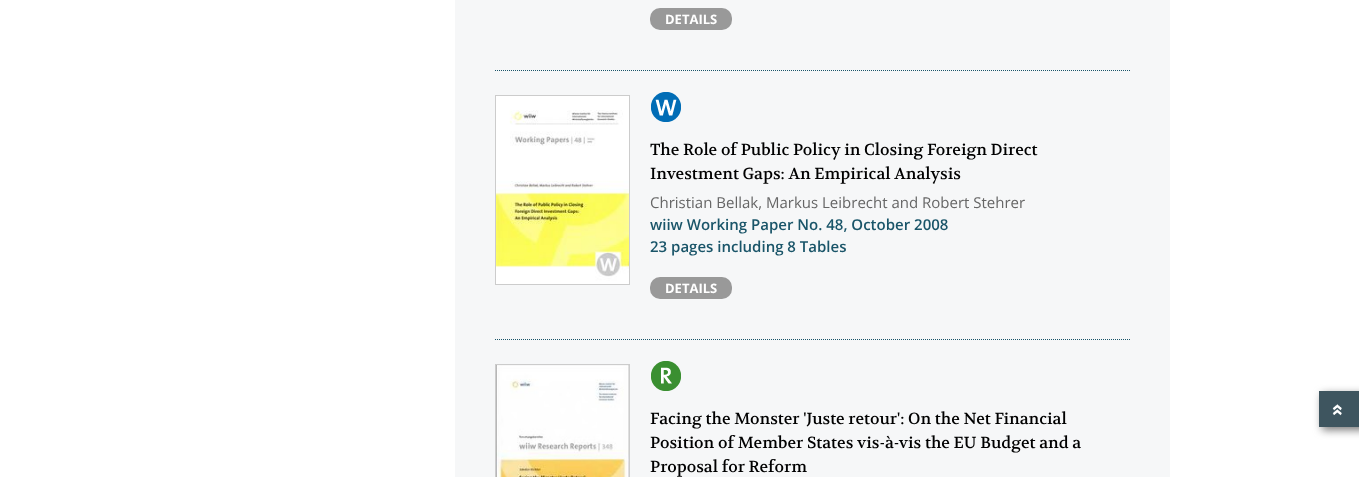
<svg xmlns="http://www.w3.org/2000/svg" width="1359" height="477">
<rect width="100%" height="100%" fill="#fff"/>
<rect x="455" width="715" height="477" fill="#f6f7f8"/>
<path d="M495 70.5h635" fill="none" stroke="#1a5569" stroke-dasharray="1 1"/>
<rect x="650" y="8" width="82" height="22" rx="10" fill="#999"/>
<text x="665" y="24" style="font-family:Open Sans;font-size:13px;font-weight:bold;fill:#fff">DETAILS</text>
<path d="M495 339.5h635" fill="none" stroke="#1a5569" stroke-dasharray="1 1"/>
<rect x="495.5" y="95.5" width="134" height="189" fill="none" stroke="#ccc"/>
<image x="496" y="96" width="133" height="188" href="media/1.png"/>
<image x="651" y="92" width="30" height="30" href="media/2.png"/>
<text x="650" y="155" style="font-family:Volkhov;font-size:16px;fill:#000">The Role of Public Policy in Closing Foreign Direct</text>
<text x="650" y="179" style="font-family:Volkhov;font-size:16px;fill:#000">Investment Gaps: An Empirical Analysis</text>
<text x="650" y="208" style="font-family:Open Sans;font-size:15px;fill:#666">Christian Bellak, Markus Leibrecht and Robert Stehrer</text>
<text x="650" y="230" style="font-family:Open Sans;font-size:15px;font-weight:600;fill:#1a5569">wiiw Working Paper No. 48, October 2008</text>
<text x="650" y="252" style="font-family:Open Sans;font-size:15px;font-weight:600;fill:#1a5569">23 pages including 8 Tables</text>
<rect x="650" y="277" width="82" height="22" rx="10" fill="#999"/>
<text x="665" y="293" style="font-family:Open Sans;font-size:13px;font-weight:bold;fill:#fff">DETAILS</text>
<rect x="495.5" y="364.5" width="134" height="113" fill="none" stroke="#ccc"/>
<image x="496" y="365" width="133" height="112" href="media/3.png"/>
<image x="651" y="361" width="30" height="30" href="media/4.png"/>
<text x="650" y="424" style="font-family:Volkhov;font-size:16px;fill:#000">Facing the Monster 'Juste retour': On the Net Financial</text>
<text x="650" y="448" style="font-family:Volkhov;font-size:16px;fill:#000">Position of Member States vis-à-vis the EU Budget and a</text>
<text x="650" y="472" style="font-family:Volkhov;font-size:16px;fill:#000">Proposal for Reform</text>
<rect x="1322" y="394" width="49" height="36" fill="#777" filter="blur(4px)"/>
<rect x="1319" y="391" width="40" height="36" fill="#3e555f"/>
<image x="1332" y="404" width="10" height="12" href="media/5.png"/>
</svg>
